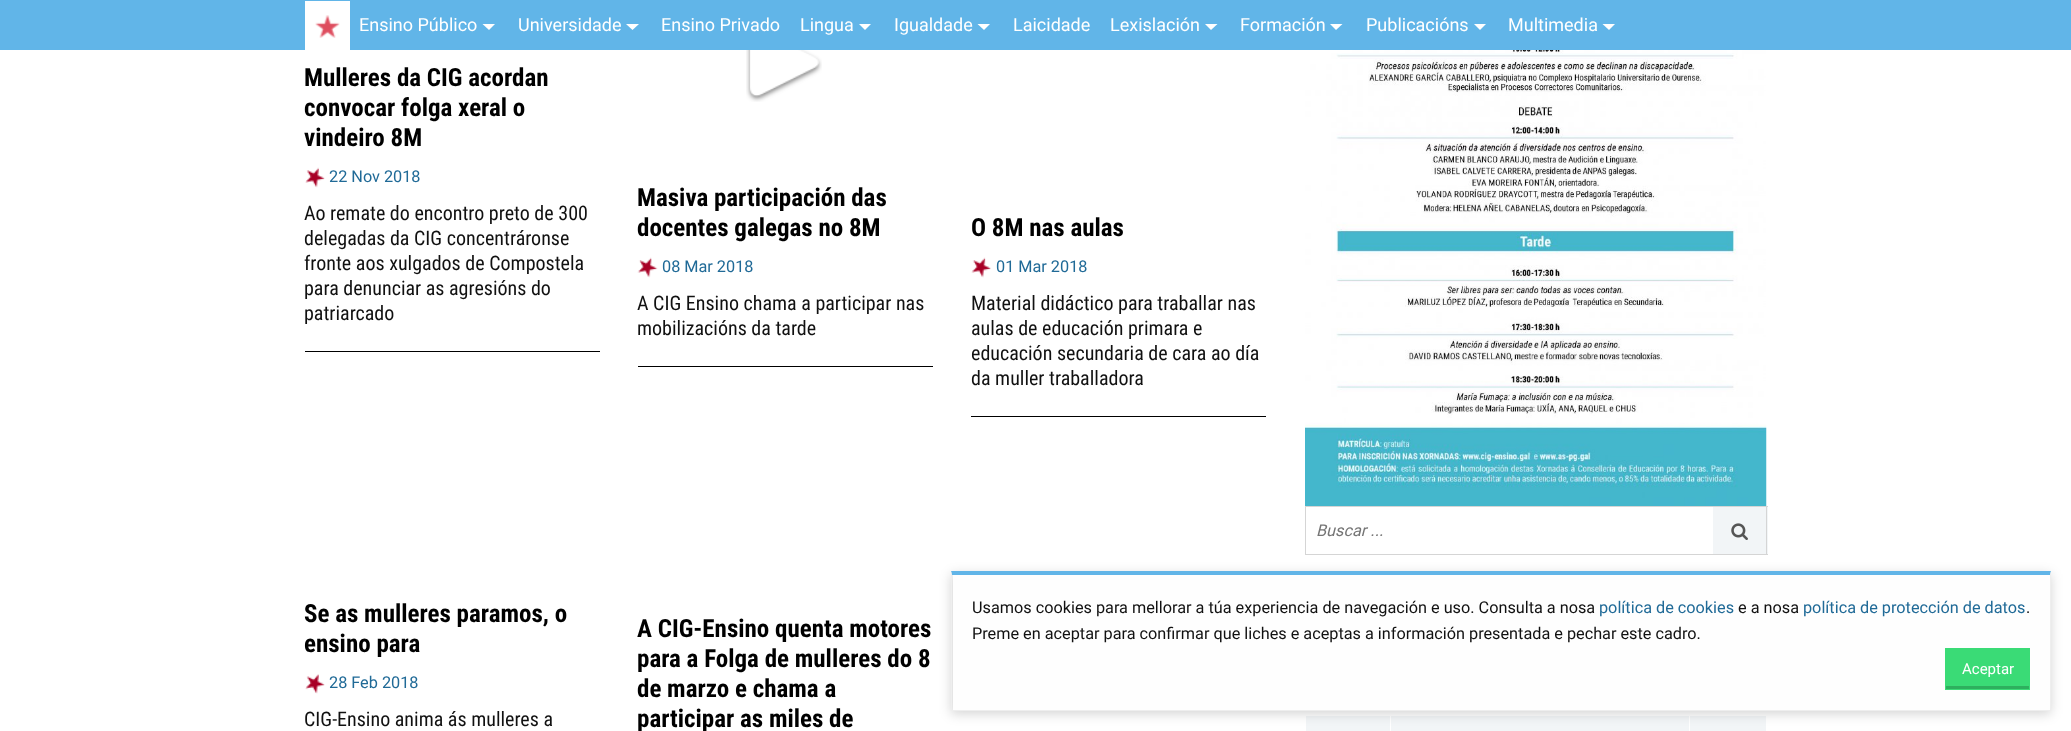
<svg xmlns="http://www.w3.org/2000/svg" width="2071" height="731">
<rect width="100%" height="100%" fill="#fff"/>
<rect width="2071" height="50" fill="#61b5e8"/>
<rect x="305" y="1" width="45" height="49" fill="#fff"/>
<image x="315" y="15" width="25" height="23" href="media/1.png"/>
<text x="359" y="31" style="font-family:Roboto;font-size:18px;fill:#fff">Ensino Público</text>
<path d="M482.5 24h12.5l-6 6z" fill="#fff"/>
<text x="518" y="31" style="font-family:Roboto;font-size:18px;fill:#fff">Universidade</text>
<path d="M626 24h13l-6.5 6z" fill="#fff"/>
<text x="661" y="31" style="font-family:Roboto;font-size:18px;fill:#fff">Ensino Privado</text>
<text x="800" y="31" style="font-family:Roboto;font-size:18px;fill:#fff">Lingua</text>
<path d="M859 24h12l-6 6z" fill="#fff"/>
<text x="894" y="31" style="font-family:Roboto;font-size:18px;fill:#fff">Igualdade</text>
<path d="M977.5 24h12.5l-6 6z" fill="#fff"/>
<text x="1013" y="31" style="font-family:Roboto;font-size:18px;fill:#fff">Laicidade</text>
<text x="1110" y="31" style="font-family:Roboto;font-size:18px;fill:#fff">Lexislación</text>
<path d="M1205 24h12.5l-6.5 6z" fill="#fff"/>
<text x="1240" y="31" style="font-family:Roboto;font-size:18px;fill:#fff">Formación</text>
<path d="M1330 24h12.5l-6.5 6z" fill="#fff"/>
<text x="1366" y="31" style="font-family:Roboto;font-size:18px;fill:#fff">Publicacións</text>
<path d="M1474 24h12l-6 6z" fill="#fff"/>
<text x="1508" y="31" style="font-family:Roboto;font-size:18px;fill:#fff">Multimedia</text>
<path d="M1602.5 24h12.5l-6 6z" fill="#fff"/>
<text x="304" y="86" style="font-family:Roboto Condensed;font-size:25px;font-weight:bold;fill:#000">Mulleres da CIG acordan</text>
<text x="304" y="116" style="font-family:Roboto Condensed;font-size:25px;font-weight:bold;fill:#000">convocar folga xeral o</text>
<text x="304" y="146" style="font-family:Roboto Condensed;font-size:25px;font-weight:bold;fill:#000">vindeiro 8M</text>
<image x="305" y="167" width="20" height="21" href="media/2.png"/>
<text x="329" y="182" style="font-family:Roboto;font-size:16.25px;fill:#206a97">22 Nov 2018</text>
<text x="304" y="220" style="font-family:Roboto Condensed;font-size:20px;fill:#111">Ao remate do encontro preto de 300</text>
<text x="304" y="245" style="font-family:Roboto Condensed;font-size:20px;fill:#111">delegadas da CIG concentráronse</text>
<text x="304" y="270" style="font-family:Roboto Condensed;font-size:20px;fill:#111">fronte aos xulgados de Compostela</text>
<text x="304" y="295" style="font-family:Roboto Condensed;font-size:20px;fill:#111">para denunciar as agresións do</text>
<text x="304" y="320" style="font-family:Roboto Condensed;font-size:20px;fill:#111">patriarcado</text>
<rect x="305" y="351" width="295" height="1" fill="#000"/>
<image x="746" y="50" width="76" height="52" href="media/3.png"/>
<text x="637" y="206" style="font-family:Roboto Condensed;font-size:25px;font-weight:bold;fill:#000">Masiva participación das</text>
<text x="637" y="236" style="font-family:Roboto Condensed;font-size:25px;font-weight:bold;fill:#000">docentes galegas no 8M</text>
<image x="637" y="257" width="21" height="21" href="media/4.png"/>
<text x="662" y="272" style="font-family:Roboto;font-size:16.25px;fill:#206a97">08 Mar 2018</text>
<text x="637" y="310" style="font-family:Roboto Condensed;font-size:20px;fill:#111">A CIG Ensino chama a participar nas</text>
<text x="637" y="335" style="font-family:Roboto Condensed;font-size:20px;fill:#111">mobilizacións da tarde</text>
<rect x="638" y="366" width="295" height="1" fill="#000"/>
<text x="971" y="236" style="font-family:Roboto Condensed;font-size:25px;font-weight:bold;fill:#000">O 8M nas aulas</text>
<image x="971" y="257" width="20" height="21" href="media/5.png"/>
<text x="996" y="272" style="font-family:Roboto;font-size:16.25px;fill:#206a97">01 Mar 2018</text>
<text x="971" y="310" style="font-family:Roboto Condensed;font-size:20px;fill:#111">Material didáctico para traballar nas</text>
<text x="971" y="335" style="font-family:Roboto Condensed;font-size:20px;fill:#111">aulas de educación primara e</text>
<text x="971" y="360" style="font-family:Roboto Condensed;font-size:20px;fill:#111">educación secundaria de cara ao día</text>
<text x="971" y="385" style="font-family:Roboto Condensed;font-size:20px;fill:#111">da muller traballadora</text>
<rect x="971" y="416" width="295" height="1" fill="#000"/>
<text x="304" y="622" style="font-family:Roboto Condensed;font-size:25px;font-weight:bold;fill:#000">Se as mulleres paramos, o</text>
<text x="304" y="652" style="font-family:Roboto Condensed;font-size:25px;font-weight:bold;fill:#000">ensino para</text>
<image x="305" y="674" width="20" height="20" href="media/6.png"/>
<text x="329" y="688" style="font-family:Roboto;font-size:16.25px;fill:#206a97">28 Feb 2018</text>
<text x="304" y="726" style="font-family:Roboto Condensed;font-size:20px;fill:#111">CIG-Ensino anima ás mulleres a</text>
<text x="637" y="637" style="font-family:Roboto Condensed;font-size:25px;font-weight:bold;fill:#000">A CIG-Ensino quenta motores</text>
<text x="637" y="667" style="font-family:Roboto Condensed;font-size:25px;font-weight:bold;fill:#000">para a Folga de mulleres do 8</text>
<text x="637" y="697" style="font-family:Roboto Condensed;font-size:25px;font-weight:bold;fill:#000">de marzo e chama a</text>
<text x="637" y="727" style="font-family:Roboto Condensed;font-size:25px;font-weight:bold;fill:#000">participar as miles de</text>
<image x="1305" y="50" width="462" height="456" href="media/7.png"/>
<rect x="1305" y="506" width="463" height="1" fill="#d5d5d5"/>
<rect x="1305" y="554" width="408" height="1" fill="#d5d5d5"/>
<rect x="1305" y="506" width="1" height="49" fill="#d5d5d5"/>
<text x="1316" y="536" style="font-family:Roboto;font-size:16.25px;font-style:italic;fill:#757575">Buscar ...</text>
<rect x="1713" y="507" width="55" height="47" fill="#f2f5f7"/>
<rect x="1766" y="506" width="1" height="49" fill="#d5d5d5"/>
<rect x="1713" y="554" width="55" height="1" fill="#d5d5d5"/>
<image x="1731" y="523" width="17" height="17" href="media/8.png"/>
<rect x="1306" y="716" width="84" height="15" fill="#f2f5f7"/>
<rect x="1391" y="716" width="298" height="15" fill="#f2f5f7"/>
<rect x="1690" y="716" width="76" height="15" fill="#f2f5f7"/>
<rect x="951" y="574" width="1100" height="140" fill="#0000002b" filter="blur(6px)"/>
<rect x="953" y="575" width="1097" height="135" fill="#fefefe"/>
<path d="M951 571h1100l-1 4h-1098z" fill="#61b5e8"/>
<path d="M2051 571v140l-1-1v-135z" fill="#eee"/>
<rect x="951" y="710" width="1100" height="1" fill="#eee"/>
<path d="M951 711v-140l1 4v135z" fill="#eee"/>
<text x="972" y="613" style="font-family:Roboto;font-size:16.25px;fill:#111">Usamos cookies para mellorar a túa experiencia de navegación e uso. Consulta a nosa</text>
<text x="1599" y="613" style="font-family:Roboto;font-size:16.25px;fill:#206a97">política de cookies</text>
<text x="1738" y="613" style="font-family:Roboto;font-size:16.25px;fill:#111">e a nosa</text>
<text x="1803" y="613" style="font-family:Roboto;font-size:16.25px;fill:#206a97">política de protección de datos</text>
<text x="2026" y="613" style="font-family:Roboto;font-size:16.25px;fill:#111">.</text>
<text x="972" y="639" style="font-family:Roboto;font-size:16.25px;fill:#111">Preme en aceptar para confirmar que liches e aceptas a información presentada e pechar este cadro.</text>
<rect x="1945" y="648" width="85" height="42" fill="#3adb76"/>
<rect x="1946" y="686" width="83" height="3" fill="#2eaf5e"/>
<text x="1962" y="674" style="font-family:Roboto;font-size:15px;fill:#fff">Aceptar</text>
</svg>
